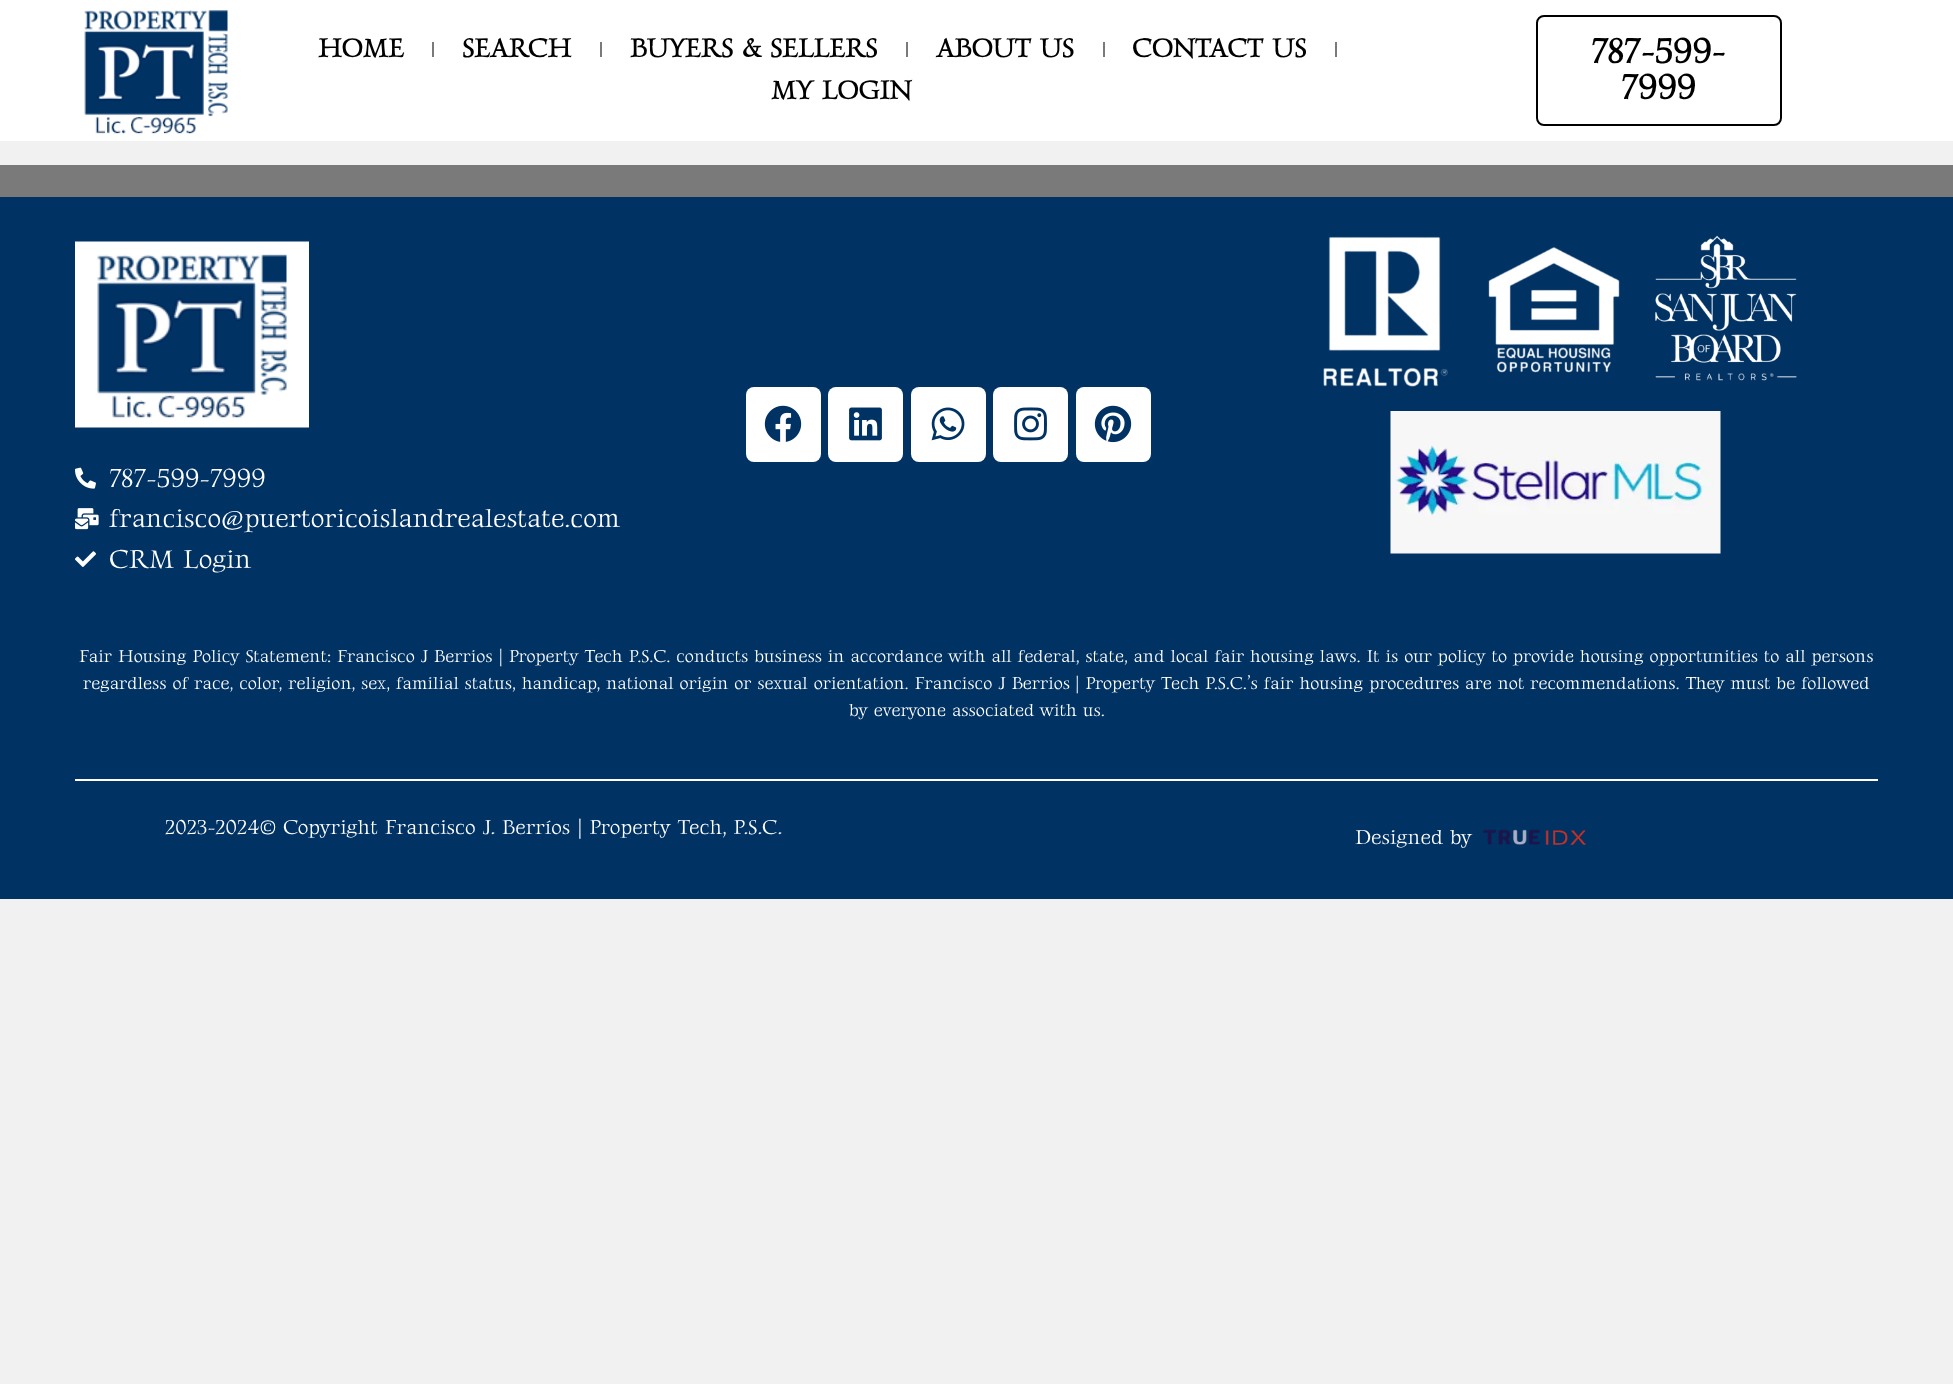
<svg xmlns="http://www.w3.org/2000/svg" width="1953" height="1384">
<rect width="100%" height="100%" fill="#f1f1f1"/>
<rect width="1953" height="141" fill="#fff"/>
<image x="84" y="10" width="144" height="124" href="media/1.png"/>
<text x="318" y="57" style="font-family:Gideon Roman;font-size:27px;font-weight:bold;fill:#000">HOME</text>
<rect x="432" y="42" width="2" height="15" fill="#7a7a7a"/>
<text x="462" y="57" style="font-family:Gideon Roman;font-size:27px;font-weight:bold;fill:#000">SEARCH</text>
<rect x="600" y="42" width="2" height="15" fill="#7a7a7a"/>
<text x="630" y="57" style="font-family:Gideon Roman;font-size:27px;font-weight:bold;fill:#000">BUYERS &amp; SELLERS</text>
<rect x="906" y="42" width="2" height="15" fill="#7a7a7a"/>
<text x="936" y="57" style="font-family:Gideon Roman;font-size:27px;font-weight:bold;fill:#000">ABOUT US</text>
<rect x="1103" y="42" width="2" height="15" fill="#7a7a7a"/>
<text x="1132" y="57" style="font-family:Gideon Roman;font-size:27px;font-weight:bold;fill:#000">CONTACT US</text>
<rect x="1335" y="42" width="2" height="15" fill="#7a7a7a"/>
<text x="771" y="99" style="font-family:Gideon Roman;font-size:27px;font-weight:bold;fill:#000">MY LOGIN</text>
<rect x="1537" y="16" width="244" height="109" rx="7" fill="none" stroke="#000" stroke-width="2"/>
<text x="1591" y="63" style="font-family:Gideon Roman;font-size:36px;font-weight:bold;fill:#000">787-599-</text>
<text x="1621" y="99" style="font-family:Gideon Roman;font-size:36px;font-weight:bold;fill:#000">7999</text>
<rect y="165" width="1953" height="32" fill="#7a7a7a"/>
<rect y="197" width="1953" height="702" fill="#003263"/>
<rect x="746" y="387" width="75" height="75" rx="8" fill="#fff"/>
<image x="764" y="405" width="38" height="37" href="media/2.png"/>
<rect x="828" y="387" width="75" height="75" rx="8" fill="#fff"/>
<image x="849" y="407" width="33" height="34" href="media/3.png"/>
<rect x="911" y="387" width="75" height="75" rx="8" fill="#fff"/>
<image x="931" y="407" width="34" height="34" href="media/4.png"/>
<rect x="993" y="387" width="75" height="75" rx="8" fill="#fff"/>
<image x="1014" y="407" width="33" height="34" href="media/5.png"/>
<rect x="1076" y="387" width="75" height="75" rx="8" fill="#fff"/>
<image x="1094" y="405" width="38" height="38" href="media/6.png"/>
<image x="1323" y="236" width="125" height="151" href="media/7.png"/>
<image x="1488" y="247" width="132" height="126" href="media/8.png"/>
<image x="1655" y="235" width="142" height="146" href="media/9.png"/>
<image x="1390" y="411" width="331" height="143" href="media/10.png"/>
<image x="75" y="241" width="234" height="187" href="media/11.png"/>
<image x="75" y="467" width="21" height="22" href="media/12.png"/>
<text x="109" y="487" style="font-family:Gideon Roman;font-size:27px;fill:#fff">787-599-7999</text>
<image x="75" y="508" width="24" height="22" href="media/13.png"/>
<text x="109" y="527" style="font-family:Gideon Roman;font-size:27px;fill:#fff">francisco@puertoricoislandrealestate.com</text>
<image x="75" y="551" width="21" height="16" href="media/14.png"/>
<text x="109" y="568" style="font-family:Gideon Roman;font-size:27px;fill:#fff">CRM Login</text>
<text x="79" y="662" style="font-family:Gideon Roman;font-size:18px;fill:#fff">Fair Housing Policy Statement: Francisco J Berrios | Property Tech P.S.C. conducts business in accordance with all federal, state, and local fair housing laws. It is our policy to provide housing opportunities to all persons</text>
<text x="83" y="689" style="font-family:Gideon Roman;font-size:18px;fill:#fff">regardless of race, color, religion, sex, familial status, handicap, national origin or sexual orientation. Francisco J Berrios</text>
<text x="1075" y="689" style="font-family:Gideon Roman;font-size:18px;fill:#fff">| Property Tech P.S.C.’s fair housing procedures are not recommendations. They must be followed</text>
<text x="849" y="716" style="font-family:Gideon Roman;font-size:18px;fill:#fff">by everyone associated with us.</text>
<rect x="75" y="779" width="1803" height="2" fill="#fff"/>
<text x="165" y="834" style="font-family:Gideon Roman;font-size:21px;fill:#fff">2023-2024© Copyright Francisco J. Berríos | Property Tech, P.S.C.</text>
<text x="1355" y="844" style="font-family:Gideon Roman;font-size:21px;fill:#fff">Designed by</text>
<image x="1483" y="829" width="104" height="16" href="media/15.png"/>
</svg>
